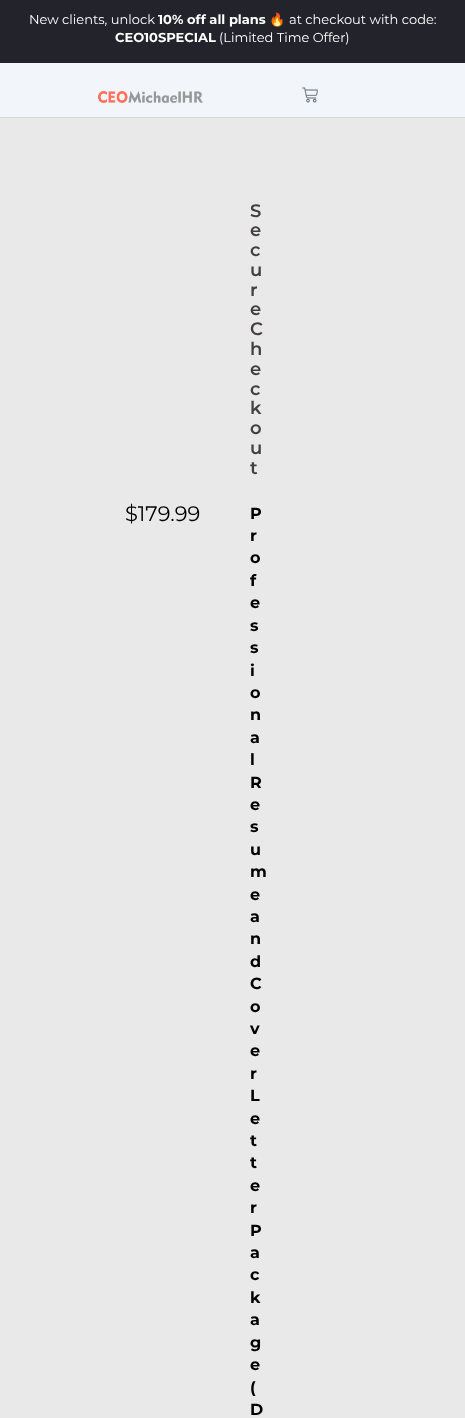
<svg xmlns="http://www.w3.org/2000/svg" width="465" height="1418">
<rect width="100%" height="100%" fill="#e9e9e9"/>
<rect width="465" height="63" fill="#22232b"/>
<text x="29" y="24" style="font-family:Montserrat;font-size:13px;fill:#fff">New clients, unlock</text>
<text x="158" y="24" style="font-family:Montserrat;font-size:13px;font-weight:bold;fill:#fff">10% off all plans</text>
<text x="269" y="24" style="font-family:Noto Color Emoji;font-size:13px;fill:#fff">🔥</text>
<text x="289" y="24" style="font-family:Montserrat;font-size:13px;fill:#fff">at checkout with code:</text>
<text x="115" y="42" style="font-family:Montserrat;font-size:13px;font-weight:bold;fill:#fff">CEO10SPECIAL</text>
<text x="219" y="42" style="font-family:Montserrat;font-size:13px;fill:#fff">(Limited Time Offer)</text>
<rect y="63" width="465" height="54" fill="#f2f5f9"/>
<rect y="117" width="465" height="1" fill="#d6d6d6"/>
<image x="97" y="91" width="106" height="12" href="media/1.png"/>
<image x="302" y="87" width="16" height="16" href="media/2.png"/>
<text x="250" y="217" style="font-family:Montserrat;font-size:18px;font-weight:600;fill:#443f3f">S</text>
<text x="250" y="236" style="font-family:Montserrat;font-size:18px;font-weight:600;fill:#443f3f">e</text>
<text x="250" y="256" style="font-family:Montserrat;font-size:18px;font-weight:600;fill:#443f3f">c</text>
<text x="250" y="276" style="font-family:Montserrat;font-size:18px;font-weight:600;fill:#443f3f">u</text>
<text x="250" y="296" style="font-family:Montserrat;font-size:18px;font-weight:600;fill:#443f3f">r</text>
<text x="250" y="315" style="font-family:Montserrat;font-size:18px;font-weight:600;fill:#443f3f">e</text>
<text x="250" y="335" style="font-family:Montserrat;font-size:18px;font-weight:600;fill:#443f3f">C</text>
<text x="250" y="355" style="font-family:Montserrat;font-size:18px;font-weight:600;fill:#443f3f">h</text>
<text x="250" y="375" style="font-family:Montserrat;font-size:18px;font-weight:600;fill:#443f3f">e</text>
<text x="250" y="395" style="font-family:Montserrat;font-size:18px;font-weight:600;fill:#443f3f">c</text>
<text x="250" y="414" style="font-family:Montserrat;font-size:18px;font-weight:600;fill:#443f3f">k</text>
<text x="250" y="434" style="font-family:Montserrat;font-size:18px;font-weight:600;fill:#443f3f">o</text>
<text x="250" y="454" style="font-family:Montserrat;font-size:18px;font-weight:600;fill:#443f3f">u</text>
<text x="250" y="474" style="font-family:Montserrat;font-size:18px;font-weight:600;fill:#443f3f">t</text>
<text x="125" y="521" style="font-family:Montserrat;font-size:21px;fill:#000">$179.99</text>
<text x="250" y="519" style="font-family:Montserrat;font-size:16px;font-weight:bold;fill:#000">P</text>
<text x="250" y="541" style="font-family:Montserrat;font-size:16px;font-weight:bold;fill:#000">r</text>
<text x="250" y="563" style="font-family:Montserrat;font-size:16px;font-weight:bold;fill:#000">o</text>
<text x="250" y="586" style="font-family:Montserrat;font-size:16px;font-weight:bold;fill:#000">f</text>
<text x="250" y="608" style="font-family:Montserrat;font-size:16px;font-weight:bold;fill:#000">e</text>
<text x="250" y="631" style="font-family:Montserrat;font-size:16px;font-weight:bold;fill:#000">s</text>
<text x="250" y="653" style="font-family:Montserrat;font-size:16px;font-weight:bold;fill:#000">s</text>
<text x="250" y="676" style="font-family:Montserrat;font-size:16px;font-weight:bold;fill:#000">i</text>
<text x="250" y="698" style="font-family:Montserrat;font-size:16px;font-weight:bold;fill:#000">o</text>
<text x="250" y="720" style="font-family:Montserrat;font-size:16px;font-weight:bold;fill:#000">n</text>
<text x="250" y="743" style="font-family:Montserrat;font-size:16px;font-weight:bold;fill:#000">a</text>
<text x="250" y="765" style="font-family:Montserrat;font-size:16px;font-weight:bold;fill:#000">l</text>
<text x="250" y="788" style="font-family:Montserrat;font-size:16px;font-weight:bold;fill:#000">R</text>
<text x="250" y="810" style="font-family:Montserrat;font-size:16px;font-weight:bold;fill:#000">e</text>
<text x="250" y="832" style="font-family:Montserrat;font-size:16px;font-weight:bold;fill:#000">s</text>
<text x="250" y="855" style="font-family:Montserrat;font-size:16px;font-weight:bold;fill:#000">u</text>
<text x="250" y="877" style="font-family:Montserrat;font-size:16px;font-weight:bold;fill:#000">m</text>
<text x="250" y="900" style="font-family:Montserrat;font-size:16px;font-weight:bold;fill:#000">e</text>
<text x="250" y="922" style="font-family:Montserrat;font-size:16px;font-weight:bold;fill:#000">a</text>
<text x="250" y="944" style="font-family:Montserrat;font-size:16px;font-weight:bold;fill:#000">n</text>
<text x="250" y="967" style="font-family:Montserrat;font-size:16px;font-weight:bold;fill:#000">d</text>
<text x="250" y="989" style="font-family:Montserrat;font-size:16px;font-weight:bold;fill:#000">C</text>
<text x="250" y="1012" style="font-family:Montserrat;font-size:16px;font-weight:bold;fill:#000">o</text>
<text x="250" y="1034" style="font-family:Montserrat;font-size:16px;font-weight:bold;fill:#000">v</text>
<text x="250" y="1056" style="font-family:Montserrat;font-size:16px;font-weight:bold;fill:#000">e</text>
<text x="250" y="1079" style="font-family:Montserrat;font-size:16px;font-weight:bold;fill:#000">r</text>
<text x="250" y="1101" style="font-family:Montserrat;font-size:16px;font-weight:bold;fill:#000">L</text>
<text x="250" y="1124" style="font-family:Montserrat;font-size:16px;font-weight:bold;fill:#000">e</text>
<text x="250" y="1146" style="font-family:Montserrat;font-size:16px;font-weight:bold;fill:#000">t</text>
<text x="250" y="1168" style="font-family:Montserrat;font-size:16px;font-weight:bold;fill:#000">t</text>
<text x="250" y="1191" style="font-family:Montserrat;font-size:16px;font-weight:bold;fill:#000">e</text>
<text x="250" y="1213" style="font-family:Montserrat;font-size:16px;font-weight:bold;fill:#000">r</text>
<text x="250" y="1236" style="font-family:Montserrat;font-size:16px;font-weight:bold;fill:#000">P</text>
<text x="250" y="1258" style="font-family:Montserrat;font-size:16px;font-weight:bold;fill:#000">a</text>
<text x="250" y="1280" style="font-family:Montserrat;font-size:16px;font-weight:bold;fill:#000">c</text>
<text x="250" y="1303" style="font-family:Montserrat;font-size:16px;font-weight:bold;fill:#000">k</text>
<text x="250" y="1325" style="font-family:Montserrat;font-size:16px;font-weight:bold;fill:#000">a</text>
<text x="250" y="1348" style="font-family:Montserrat;font-size:16px;font-weight:bold;fill:#000">g</text>
<text x="250" y="1370" style="font-family:Montserrat;font-size:16px;font-weight:bold;fill:#000">e</text>
<text x="250" y="1393" style="font-family:Montserrat;font-size:16px;font-weight:bold;fill:#000">(</text>
<text x="250" y="1415" style="font-family:Montserrat;font-size:16px;font-weight:bold;fill:#000">D</text>
</svg>
